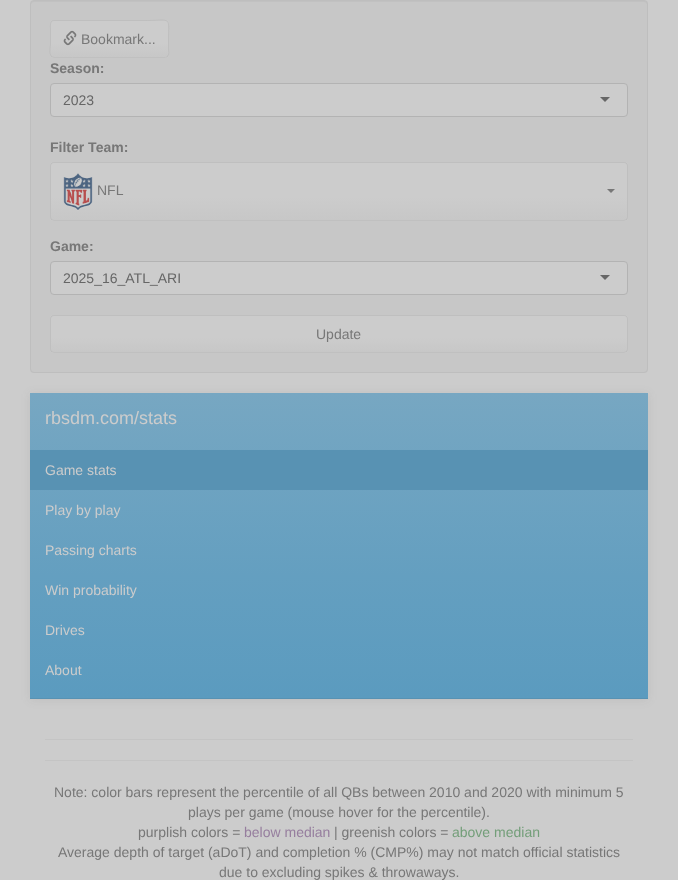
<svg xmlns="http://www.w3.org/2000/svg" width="678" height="880">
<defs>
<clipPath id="clip1"><rect x="50" y="20" width="119" height="38" rx="4"/></clipPath>
<linearGradient id="g1" gradientUnits="userSpaceOnUse" x1="110" y1="21" x2="110" y2="57"><stop offset="0" stop-color="#ccc"/><stop offset="0.6" stop-color="#ccc"/><stop offset="1" stop-color="#c7c7c7"/></linearGradient>
<clipPath id="clip2"><rect x="50" y="162" width="578" height="59" rx="4"/></clipPath>
<linearGradient id="g2" gradientUnits="userSpaceOnUse" x1="339" y1="163" x2="339" y2="220"><stop offset="0" stop-color="#ccc"/><stop offset="0.6" stop-color="#ccc"/><stop offset="1" stop-color="#c7c7c7"/></linearGradient>
<clipPath id="clip3"><rect x="50" y="315" width="578" height="38" rx="4"/></clipPath>
<linearGradient id="g3" gradientUnits="userSpaceOnUse" x1="339" y1="316" x2="339" y2="352"><stop offset="0" stop-color="#ccc"/><stop offset="0.6" stop-color="#ccc"/><stop offset="1" stop-color="#c7c7c7"/></linearGradient>
<linearGradient id="g4" gradientUnits="userSpaceOnUse" x1="339" y1="393" x2="339" y2="698"><stop offset="0" stop-color="#77a7c2"/><stop offset="0.6" stop-color="#649fc0"/><stop offset="1" stop-color="#5b9bbf"/></linearGradient>
</defs>
<rect width="100%" height="100%" fill="#ccc"/>
<rect x="30" width="618" height="373" rx="4" fill="#c7c7c7"/>
<path d="M34 2h610c2 0 3 1 3 3v-1c0-2-1-3-3-3h-610c-2 0-3 1-3 3v1c0-2 1-3 3-3z" fill="#c1c1c1"/>
<rect x="30.5" y="0.5" width="617" height="372" rx="3.5" fill="none" stroke="#bebebe"/>
<rect x="50" y="20" width="119" height="38" rx="4" fill="#ccc"/>
<g clip-path="url(#clip1)">
<rect x="51" y="21" width="117" height="36" fill="url(#g1)"/>
</g>
<path d="M167.5 56.5l-2 1h-93h-18.5l-2.5-1" fill="none" stroke="#c0c0c0"/>
<path d="M51.5 56.5c-2.5-2.5-1-10-1-12.5v-15c0-2.5-1-8.5 3.5-8.5h92.5c25.5 0 22-4.5 22 18.5v10c0 2 1 5.5-1 7.5" fill="none" stroke="#4d4d4d1a"/>
<image x="63" y="30" width="14" height="16" href="media/1.png"/>
<text x="81" y="44" style="font-family:Liberation Sans;font-size:14px;fill:#777">Bookmark...</text>
<text x="50" y="73" style="font-family:Liberation Sans;font-size:14px;font-weight:bold;fill:#777">Season:</text>
<rect x="50.5" y="83.5" width="577" height="33" rx="3.5" fill="#ccc" stroke="#b3b3b3"/>
<text x="63" y="105" style="font-family:Liberation Sans;font-size:14px;fill:#666">2023</text>
<path d="M600 97h10l-5 5z" fill="#666"/>
<text x="50" y="152" style="font-family:Liberation Sans;font-size:14px;font-weight:bold;fill:#777">Filter Team:</text>
<rect x="50" y="162" width="578" height="59" rx="4" fill="#ccc"/>
<g clip-path="url(#clip2)">
<rect x="51" y="163" width="576" height="57" fill="url(#g2)"/>
</g>
<path d="M626.5 219.5l-2.5 1h-570l-2.5-1" fill="none" stroke="#c0c0c0"/>
<path d="M51.5 219.5c-.5-.5-1-1.5-1-2.5v-51c0-1 .5-2 1-2.5c.5-.5 1.5-1 2.5-1h570c1 0 2 .5 2.5 1c.5 .5 1 1.5 1 2.5v51c0 1-.5 2-1 2.5" fill="none" stroke="#4d4d4d1a"/>
<image x="63" y="173" width="30" height="38" href="media/2.png"/>
<text x="97" y="195" style="font-family:Liberation Sans;font-size:14px;fill:#777">NFL</text>
<path d="M607 189h8l-4 4z" fill="#777"/>
<text x="50" y="251" style="font-family:Liberation Sans;font-size:14px;font-weight:bold;fill:#777">Game:</text>
<rect x="50.5" y="261.5" width="577" height="33" rx="3.5" fill="#ccc" stroke="#b3b3b3"/>
<text x="63" y="283" style="font-family:Liberation Sans;font-size:14px;fill:#666">2025_16_ATL_ARI</text>
<path d="M600 275h10l-5 5z" fill="#666"/>
<rect x="50" y="315" width="578" height="38" rx="4" fill="#ccc"/>
<g clip-path="url(#clip3)">
<rect x="51" y="316" width="576" height="36" fill="url(#g3)"/>
</g>
<path d="M626.5 351.5l-2.5 1h-570l-2.5-1" fill="none" stroke="#c0c0c0"/>
<path d="M51.5 351.5c-.5-.5-1-1.5-1-2.5v-30c0-1 .5-2 1-2.5c.5-.5 1.5-1 2.5-1h570c1 0 2 .5 2.5 1c.5 .5 1 1.5 1 2.5v30c0 1-.5 2-1 2.5" fill="none" stroke="#4d4d4d1a"/>
<text x="316" y="339" style="font-family:Liberation Sans;font-size:14px;fill:#777">Update</text>
<rect x="30" y="394" width="618" height="306" fill="#4d4d4d1a" filter="blur(5px)"/>
<rect x="30" y="393" width="618" height="305" fill="url(#g4)"/>
<rect x="30" y="698" width="618" height="1" fill="#5892b3"/>
<text x="45" y="424" style="font-family:Liberation Sans;font-size:18px;fill:#ccc">rbsdm.com/stats</text>
<rect x="30" y="450" width="618" height="40" fill="#5892b3"/>
<text x="45" y="475" style="font-family:Liberation Sans;font-size:14px;fill:#ccc">Game stats</text>
<text x="45" y="515" style="font-family:Liberation Sans;font-size:14px;fill:#ccc">Play by play</text>
<text x="45" y="555" style="font-family:Liberation Sans;font-size:14px;fill:#ccc">Passing charts</text>
<text x="45" y="595" style="font-family:Liberation Sans;font-size:14px;fill:#ccc">Win probability</text>
<text x="45" y="635" style="font-family:Liberation Sans;font-size:14px;fill:#ccc">Drives</text>
<text x="45" y="675" style="font-family:Liberation Sans;font-size:14px;fill:#ccc">About</text>
<rect x="45" y="739" width="588" height="1" fill="#c4c4c4"/>
<rect x="45" y="760" width="588" height="1" fill="#c4c4c4"/>
<text x="54" y="797" style="font-family:Liberation Sans;font-size:14px;fill:#777">Note: color bars represent the percentile of all QBs between 2010 and 2020 with minimum 5</text>
<text x="188" y="817" style="font-family:Liberation Sans;font-size:14px;fill:#777">plays per game (mouse hover for the percentile).</text>
<text x="138" y="837" style="font-family:Liberation Sans;font-size:14px;fill:#777">purplish colors =</text>
<text x="244" y="837" style="font-family:Liberation Sans;font-size:14px;fill:#967e9e">below median</text>
<text x="334" y="837" style="font-family:Liberation Sans;font-size:14px;fill:#777">| greenish colors =</text>
<text x="452" y="837" style="font-family:Liberation Sans;font-size:14px;fill:#739e79">above median</text>
<text x="58" y="857" style="font-family:Liberation Sans;font-size:14px;fill:#777">Average depth of target (aDoT) and completion % (CMP%) may not match official statistics</text>
<text x="219" y="877" style="font-family:Liberation Sans;font-size:14px;fill:#777">due to excluding spikes &amp; throwaways.</text>
</svg>
